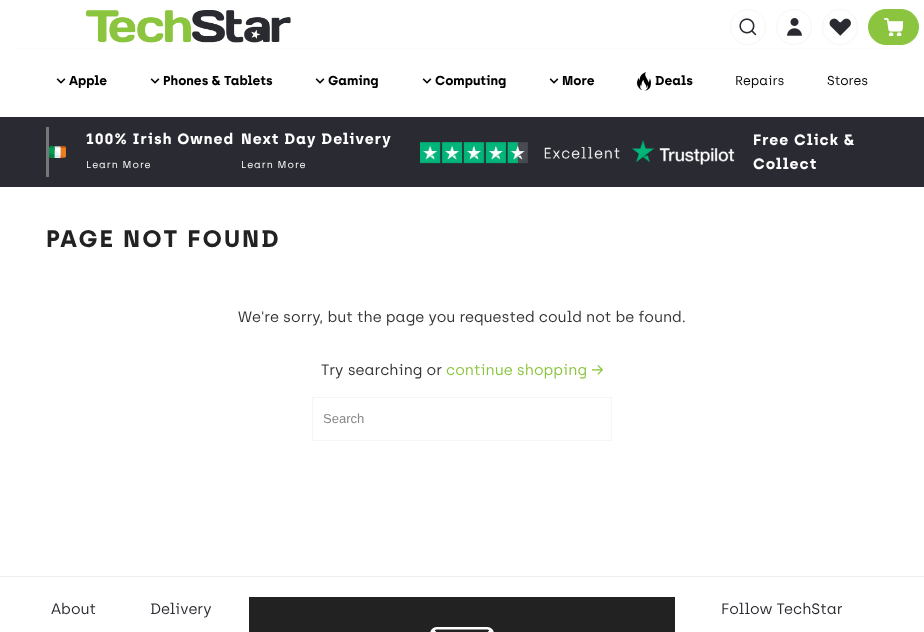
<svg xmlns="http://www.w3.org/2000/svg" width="924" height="632">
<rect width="100%" height="100%" fill="#fff"/>
<image x="86" y="10" width="205" height="33" href="media/1.png"/>
<circle cx="748" cy="27" r="17.5" fill="none" stroke="#f5f5f5"/>
<image x="739" y="18" width="18" height="18" href="media/2.png"/>
<circle cx="794" cy="27" r="17.5" fill="none" stroke="#f5f5f5"/>
<image x="787" y="18" width="15" height="18" href="media/3.png"/>
<circle cx="840" cy="27" r="17.5" fill="none" stroke="#f5f5f5"/>
<image x="829" y="18" width="22" height="18" href="media/4.png"/>
<rect x="868.5" y="9.5" width="50" height="35" rx="17.5" fill="#8bc53f" stroke="#8bc53f"/>
<image x="884" y="18" width="19" height="18" href="media/5.png"/>
<rect x="15" y="48" width="894" height="1" fill="#fcfcfc"/>
<image x="56" y="78" width="10" height="6" href="media/6.png"/>
<text x="69" y="85" style="font-family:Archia;font-size:13px;font-weight:bold;fill:#000">Apple</text>
<image x="150" y="78" width="10" height="6" href="media/6.png"/>
<text x="163" y="85" style="font-family:Archia;font-size:13px;font-weight:bold;fill:#000">Phones &amp; Tablets</text>
<image x="315" y="78" width="10" height="6" href="media/6.png"/>
<text x="328" y="85" style="font-family:Archia;font-size:13px;font-weight:bold;fill:#000">Gaming</text>
<image x="422" y="78" width="10" height="6" href="media/6.png"/>
<text x="435" y="85" style="font-family:Archia;font-size:13px;font-weight:bold;fill:#000">Computing</text>
<image x="549" y="78" width="10" height="6" href="media/6.png"/>
<text x="562" y="85" style="font-family:Archia;font-size:13px;font-weight:bold;fill:#000">More</text>
<image x="637" y="72" width="14" height="19" href="media/7.png"/>
<text x="655" y="85" style="font-family:Archia;font-size:13px;font-weight:bold;fill:#000">Deals</text>
<text x="735" y="85" style="font-family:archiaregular;font-size:13px;fill:#000">Repairs</text>
<text x="827" y="85" style="font-family:archiaregular;font-size:13px;fill:#000">Stores</text>
<rect y="117" width="924" height="70" fill="#2a2b32"/>
<rect x="46" y="127" width="3" height="50" fill="#777"/>
<image x="49" y="146" width="17" height="12" href="media/8.png"/>
<text x="86" y="144" style="font-family:Archia;font-size:15px;font-weight:bold;letter-spacing:1px;fill:#fff">100% Irish Owned</text>
<text x="86" y="168" style="font-family:archiaregular;font-size:10px;letter-spacing:1px;fill:#fff">Learn More</text>
<text x="241" y="144" style="font-family:Archia;font-size:15px;font-weight:bold;letter-spacing:1px;fill:#fff">Next Day Delivery</text>
<text x="241" y="168" style="font-family:archiaregular;font-size:10px;letter-spacing:1px;fill:#fff">Learn More</text>
<image x="420" y="140" width="315" height="25" href="media/9.png"/>
<text x="753" y="145" style="font-family:Archia;font-size:15px;font-weight:bold;letter-spacing:1px;fill:#fff">Free Click &amp;</text>
<text x="753" y="169" style="font-family:Archia;font-size:15px;font-weight:bold;letter-spacing:1px;fill:#fff">Collect</text>
<text x="46" y="247" style="font-family:Archia;font-size:24px;font-weight:bold;letter-spacing:2px;fill:#222">PAGE NOT FOUND</text>
<text x="238" y="322" style="font-family:archiaregular;font-size:15px;fill:#333">We're sorry, but the page you requested could not be found.</text>
<text x="321" y="375" style="font-family:archiaregular;font-size:15px;fill:#333">Try searching or</text>
<text x="446" y="375" style="font-family:archiaregular;font-size:15px;fill:#8bc53f">continue shopping →</text>
<rect x="312.5" y="397.5" width="299" height="43" fill="none" stroke="#f5f5f5"/>
<text x="323" y="423" style="font-family:Liberation Sans;font-size:13px;fill:#888">Search</text>
<rect y="576" width="924" height="1" fill="#eee"/>
<text x="51" y="614" style="font-family:archiaregular;font-size:15px;fill:#2a2b32">About</text>
<text x="150" y="614" style="font-family:archiaregular;font-size:15px;fill:#2a2b32">Delivery</text>
<rect x="249" y="597" width="426" height="35" fill="#222"/>
<image x="430" y="627" width="64" height="5" href="media/10.png"/>
<text x="721" y="614" style="font-family:archiaregular;font-size:15px;fill:#2a2b32">Follow TechStar</text>
</svg>
